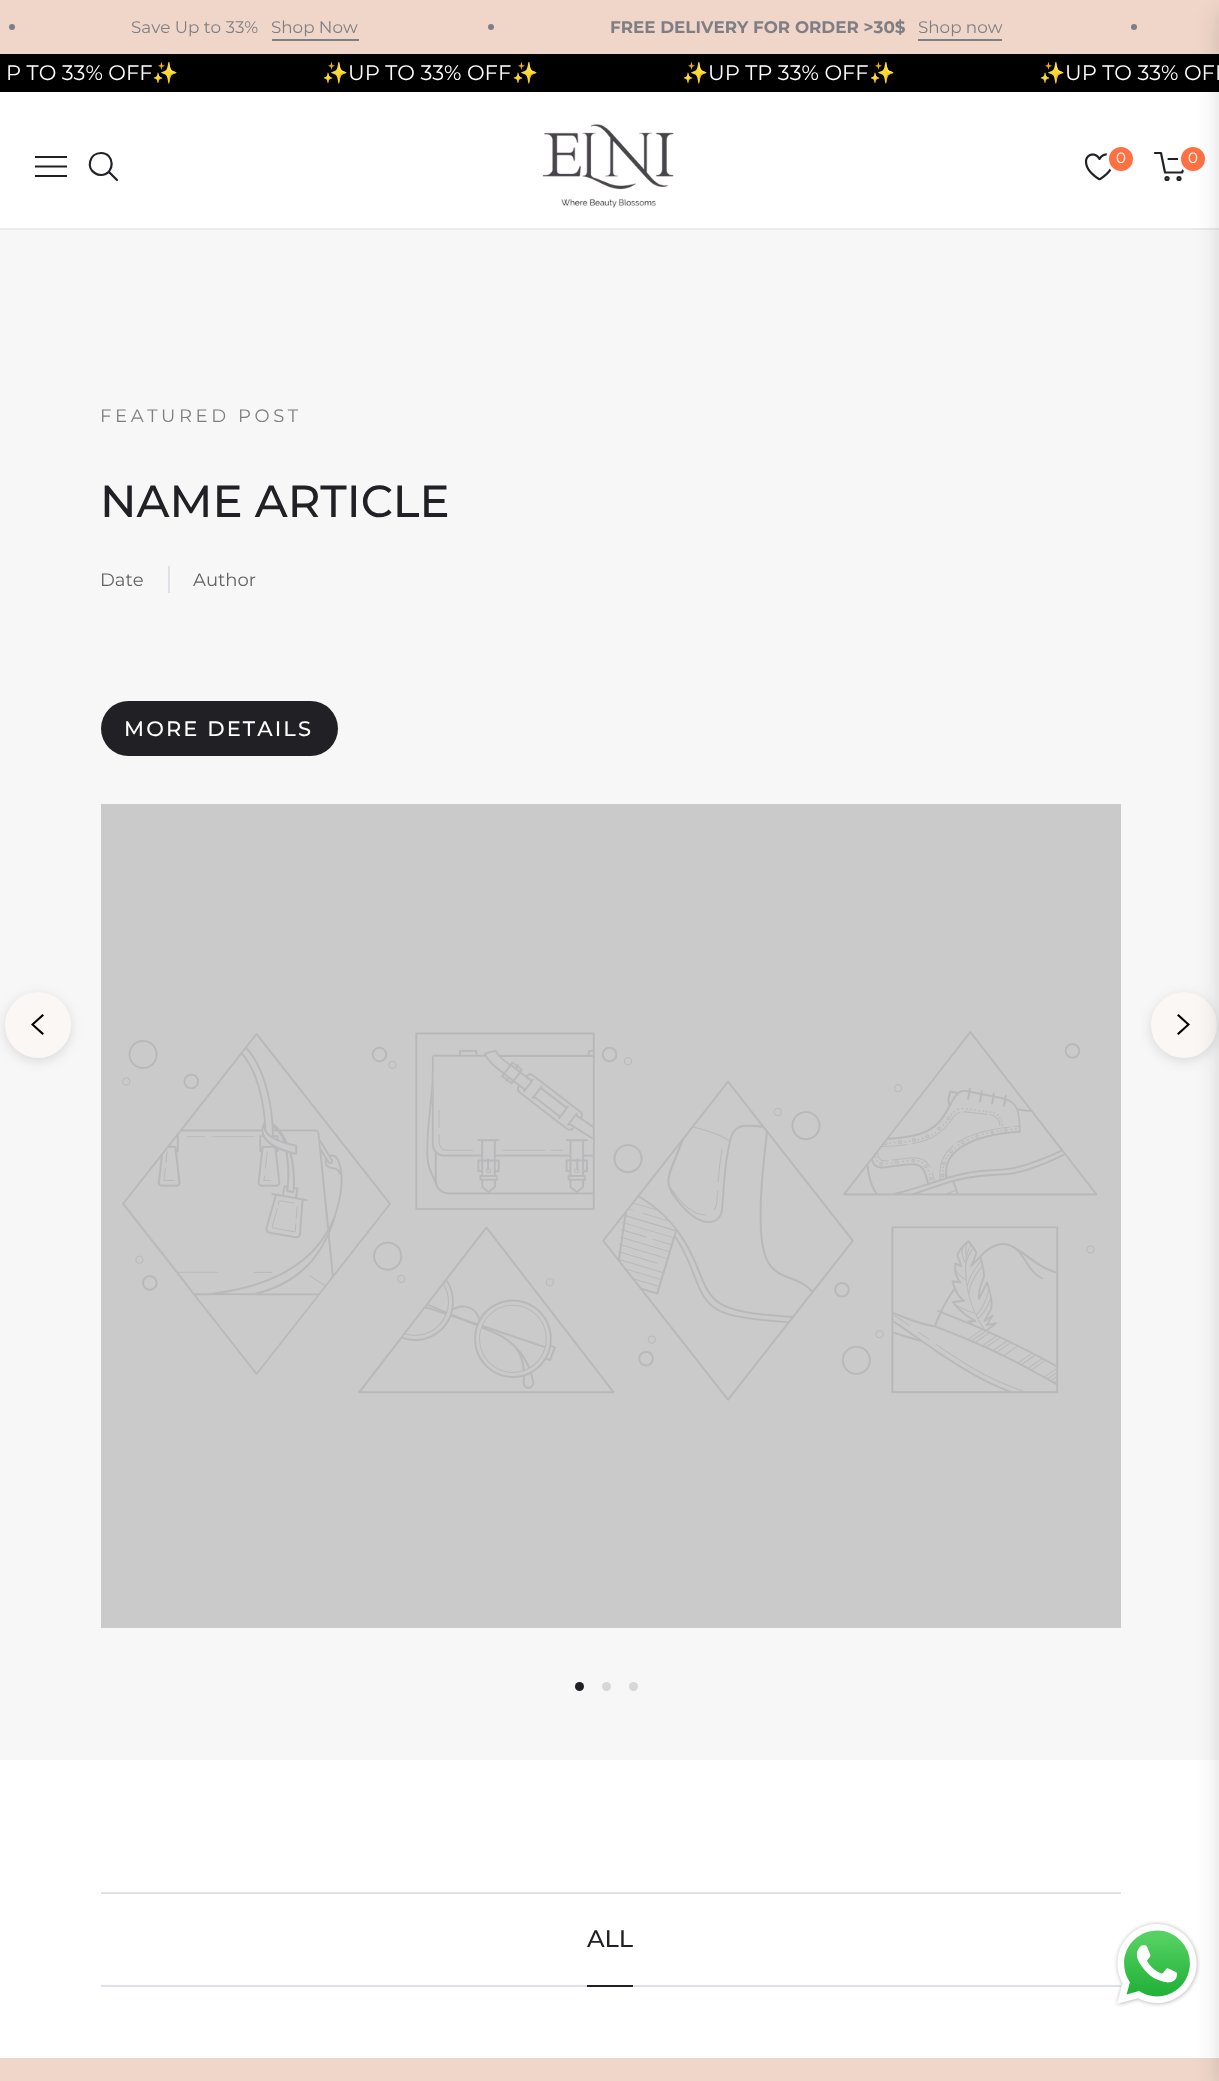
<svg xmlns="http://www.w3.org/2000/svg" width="1219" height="2081">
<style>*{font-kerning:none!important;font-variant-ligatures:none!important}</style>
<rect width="100%" height="100%" fill="#fff"/>
<rect width="1219" height="54" fill="#efd6c9"/>
<circle cx="12" cy="27" r="3" fill="#7e7e84"/>
<text x="131" y="33" style="font-family:Montserrat;font-size:16.75px;fill:#7e7e84">Save Up to 33%</text>
<text x="271" y="33" style="font-family:Montserrat;font-size:16.75px;fill:#7e7e84">Shop Now</text>
<rect x="272" y="39" width="87" height="2" fill="#7e7e84"/>
<circle cx="491" cy="27" r="3" fill="#7e7e84"/>
<text x="610" y="33" style="font-family:Montserrat;font-size:16.75px;font-weight:bold;fill:#7e7e84">FREE DELIVERY FOR ORDER &gt;30$</text>
<text x="918" y="33" style="font-family:Montserrat;font-size:16.75px;fill:#7e7e84">Shop now</text>
<rect x="918" y="39" width="84" height="2" fill="#7e7e84"/>
<circle cx="1134" cy="27" r="3" fill="#7e7e84"/>
<rect y="54" width="1219" height="38" fill="#000"/>
<text x="6" y="80" style="font-family:Montserrat;font-size:21px;fill:#fff">P TO 33% OFF</text>
<text x="152" y="80" style="font-family:Noto Color Emoji;font-size:21px;fill:#fff">✨</text>
<text x="322" y="80" style="font-family:Noto Color Emoji;font-size:21px;fill:#fff">✨</text>
<text x="348" y="80" style="font-family:Montserrat;font-size:21px;fill:#fff">UP TO 33% OFF</text>
<text x="512" y="80" style="font-family:Noto Color Emoji;font-size:21px;fill:#fff">✨</text>
<text x="682" y="80" style="font-family:Noto Color Emoji;font-size:21px;fill:#fff">✨</text>
<text x="708" y="80" style="font-family:Montserrat;font-size:21px;fill:#fff">UP TP 33% OFF</text>
<text x="869" y="80" style="font-family:Noto Color Emoji;font-size:21px;fill:#fff">✨</text>
<text x="1039" y="80" style="font-family:Noto Color Emoji;font-size:21px;fill:#fff">✨</text>
<text x="1065" y="80" style="font-family:Montserrat;font-size:21px;fill:#fff">UP TO 33% OFF</text>
<rect y="228" width="1219" height="1532" fill="#f7f7f7"/>
<rect x="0" y="91" width="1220" height="138" fill="none" stroke="#0000000d" stroke-width="2"/>
<rect y="92" width="1" height="136" fill="#fff"/>
<path d="M36 176h30m-30-9.5h30m-30-9.5h30" fill="none" stroke="#202025" stroke-width="2.1" stroke-linecap="square"/>
<path d="M101 153c-11.5 0-15.5 15-5.5 20.5c1.5 1 3.5 1.5 5.5 1.5c14.5-.5 14-22 0-22z" fill="none" stroke="#202025" stroke-width="2.2"/>
<path d="M109.5 172.5l7.5 7.5" fill="none" stroke="#202025" stroke-width="2.2" stroke-linecap="round"/>
<image x="542" y="124" width="132" height="84" href="media/1.png"/>
<image x="1084" y="153" width="28" height="28" href="media/2.png"/>
<circle cx="1121" cy="159" r="13.5" fill="#ff7143" stroke="#fff" stroke-width="3"/>
<text x="1116" y="163" style="font-family:Montserrat;font-size:15px;fill:#fff">0</text>
<path d="M1168.5 159h19.5l-6 13.5h-17l-4-19.5h-6" fill="none" stroke="#202025" stroke-width="2.2" stroke-linecap="round" stroke-linejoin="round"/>
<circle cx="1193" cy="159" r="13.5" fill="#ff7143" stroke="#fff" stroke-width="3"/>
<rect x="1151" y="995" width="66" height="66" rx="33" fill="#36363626" filter="blur(6px)"/>
<circle cx="1184" cy="1025" r="33" fill="#fbf7f5"/>
<path d="M1177 1015.5l1.5-1.5l11.5 10.5l-11.5 10.5l-1.5-1.5l10-9z" fill="#000"/>
<rect y="2058" width="1219" height="23" fill="#efd6c9"/>
<rect x="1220" y="12" width="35" height="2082" fill="#00000026" filter="blur(12px)"/>
<circle cx="1167" cy="178.5" r="1.5" fill="none" stroke="#202025" stroke-width="2.2"/>
<circle cx="1179" cy="178.5" r="1.5" fill="none" stroke="#202025" stroke-width="2.2"/>
<text x="1188" y="163" style="font-family:Montserrat;font-size:15px;fill:#fff">0</text>
<text x="100" y="422" style="font-family:Montserrat;font-size:18px;letter-spacing:3.6px;fill:#7e7e84">FEATURED POST</text>
<text x="100" y="517" style="font-family:Montserrat;font-size:45px;font-weight:500;fill:#202025">NAME ARTICLE</text>
<rect x="168" y="566" width="2" height="27" fill="#dee2e6"/>
<text x="100" y="586" style="font-family:Montserrat;font-size:18px;fill:#616164">Date</text>
<text x="193" y="586" style="font-family:Montserrat;font-size:18px;fill:#616164">Author</text>
<rect x="101" y="701" width="237" height="55" rx="27.5" fill="#202025"/>
<text x="124" y="736" style="font-family:Montserrat;font-size:21px;font-weight:500;letter-spacing:2.1px;fill:#fff">MORE DETAILS</text>
<rect x="101" y="804" width="1020" height="824" fill="#cacacb"/>
<image x="122" y="1031" width="975" height="370" href="media/3.png"/>
<rect x="5" y="995" width="66" height="66" rx="33" fill="#36363626" filter="blur(6px)"/>
<circle cx="38" cy="1025" r="33" fill="#fbf7f5"/>
<path d="M44 1033.5l-1.5 1.5l-11.5-10.5l11.5-10.5l1.5 1.5l-10 9z" fill="#000"/>
<circle cx="579.5" cy="1686.5" r="4.5" fill="#202025"/>
<circle cx="606.5" cy="1686.5" r="4.5" fill="#d7d7d8"/>
<circle cx="633.5" cy="1686.5" r="4.5" fill="#d7d7d8"/>
<rect x="101" y="1892" width="1020" height="2" fill="#dee2e6"/>
<rect x="101" y="1985" width="1020" height="2" fill="#dee2e6"/>
<text x="587" y="1947" style="font-family:Montserrat;font-size:24px;font-weight:500;fill:#202025">ALL</text>
<rect x="587" y="1985" width="46" height="2" fill="#202025"/>
<image x="1114" y="1921" width="86" height="86" href="media/4.png"/>
</svg>
